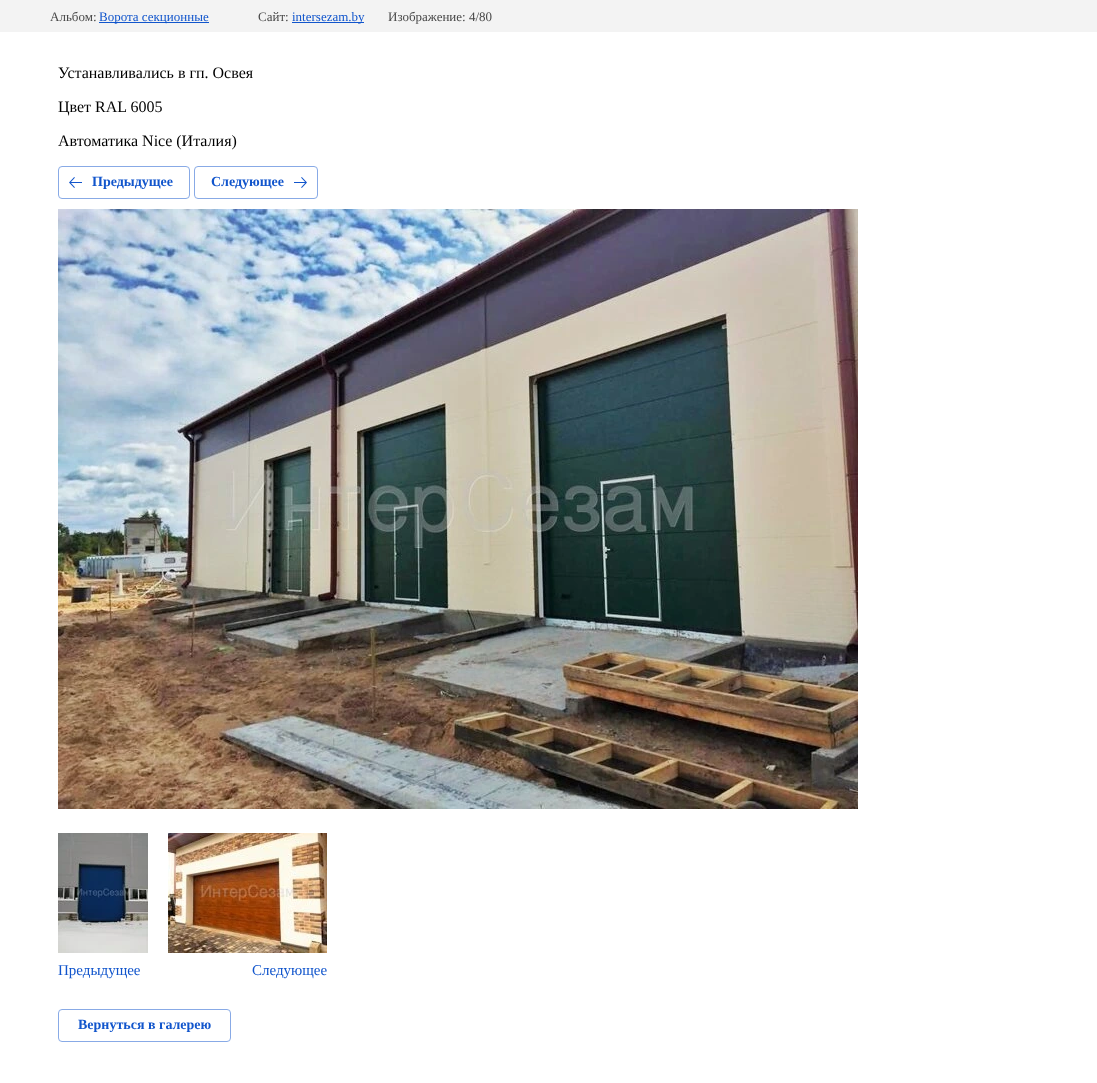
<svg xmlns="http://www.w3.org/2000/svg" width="1097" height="1083">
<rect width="100%" height="100%" fill="#fff"/>
<rect width="1097" height="32" fill="#f3f3f3"/>
<text x="50" y="21" style="font-family:Liberation Serif;font-size:13px;fill:#484848">Альбом:</text>
<rect x="99" y="22" width="110" height="1" fill="#15c"/>
<text x="99" y="21" style="font-family:Liberation Serif;font-size:13px;fill:#15c">Ворота секционные</text>
<text x="258" y="21" style="font-family:Liberation Serif;font-size:13px;fill:#484848">Сайт:</text>
<rect x="292" y="22" width="72" height="1" fill="#15c"/>
<text x="292" y="21" style="font-family:Liberation Serif;font-size:13px;fill:#15c">intersezam.by</text>
<text x="388" y="21" style="font-family:Liberation Serif;font-size:13px;fill:#484848">Изображение: 4/80</text>
<text x="58" y="78" style="font-family:Liberation Serif;font-size:16px;fill:#000">Устанавливались в гп. Освея</text>
<text x="58" y="112" style="font-family:Liberation Serif;font-size:16px;fill:#000">Цвет RAL 6005</text>
<text x="58" y="146" style="font-family:Liberation Serif;font-size:16px;fill:#000">Автоматика Nice (Италия)</text>
<rect x="58.5" y="166.5" width="131" height="32" rx="3.5" fill="none" stroke="#88aae6"/>
<image x="69" y="177" width="13" height="11" href="media/1.png"/>
<text x="92" y="186" style="font-family:Liberation Serif;font-size:14px;font-weight:bold;fill:#15c">Предыдущее</text>
<rect x="194.5" y="166.5" width="123" height="32" rx="3.5" fill="none" stroke="#88aae6"/>
<text x="211" y="186" style="font-family:Liberation Serif;font-size:14px;font-weight:bold;fill:#15c">Следующее</text>
<image x="294" y="177" width="13" height="11" href="media/2.png"/>
<image x="58" y="209" width="800" height="600" href="media/3.png"/>
<image x="58" y="833" width="90" height="120" href="media/4.png"/>
<text x="58" y="975" style="font-family:Liberation Serif;font-size:15px;fill:#15c">Предыдущее</text>
<image x="168" y="833" width="159" height="120" href="media/5.png"/>
<text x="252" y="975" style="font-family:Liberation Serif;font-size:15px;fill:#15c">Следующее</text>
<rect x="58.5" y="1009.5" width="172" height="32" rx="3.5" fill="none" stroke="#88aae6"/>
<text x="78" y="1029" style="font-family:Liberation Serif;font-size:14px;font-weight:bold;fill:#15c">Вернуться в галерею</text>
</svg>
